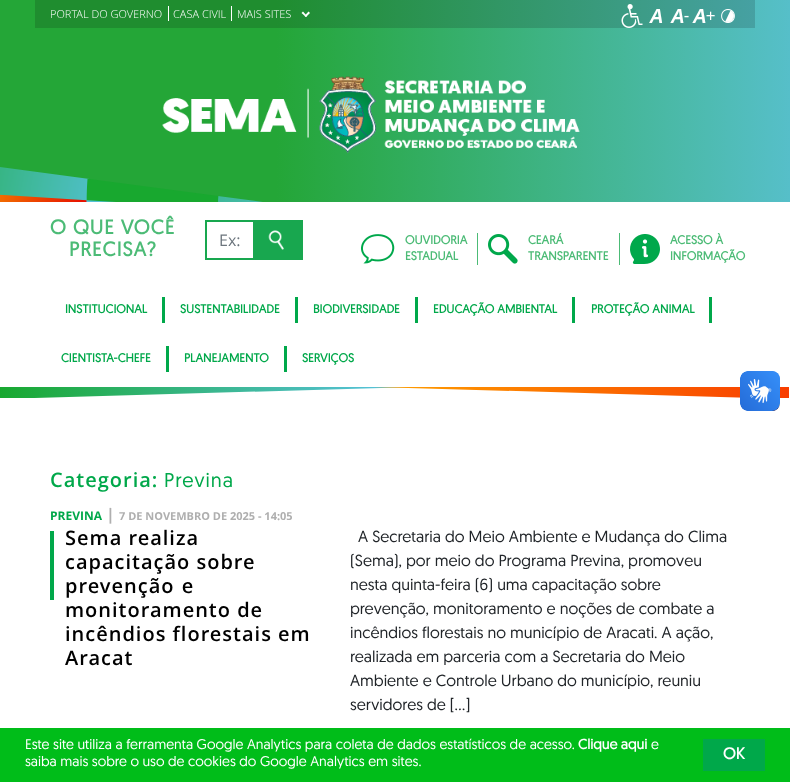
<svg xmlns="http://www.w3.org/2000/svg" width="790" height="782">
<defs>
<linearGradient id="g1" gradientUnits="userSpaceOnUse" x1="790" y1="202" x2="0" y2="201"><stop offset="0" stop-color="#56bfc9"/><stop offset="0.65" stop-color="#24a637"/></linearGradient>
<linearGradient id="g2" gradientUnits="userSpaceOnUse" x1="790" y1="202" x2="0" y2="201"><stop offset="0" stop-color="#49a2ab"/><stop offset="0.65" stop-color="#1f8d2f"/></linearGradient>
<clipPath id="clip1"><rect y="387" width="789" height="11"/></clipPath>
<linearGradient id="g3" gradientUnits="userSpaceOnUse" x1="-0.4" y1="397" x2="415" y2="397"><stop offset="0" stop-color="#18a82f"/><stop offset="1" stop-color="#5bc4e8"/></linearGradient>
<linearGradient id="g4" gradientUnits="userSpaceOnUse" x1="790" y1="389" x2="374" y2="389"><stop offset="0" stop-color="#f83d00"/><stop offset="1" stop-color="#ffa100"/></linearGradient>
</defs>
<rect width="100%" height="100%" fill="#fff"/>
<rect width="790" height="202" fill="url(#g1)"/>
<rect x="35" width="720" height="28" fill="url(#g2)"/>
<image x="0" y="167" width="263" height="35" href="media/1.png"/>
<text x="50" y="18" style="font-family:Open Sans;font-size:11px;font-weight:300;fill:#fff">PORTAL DO GOVERNO</text>
<rect x="168" y="6" width="1" height="15" fill="#fff"/>
<text x="173" y="18" style="font-family:Open Sans;font-size:11px;font-weight:300;fill:#fff">CASA CIVIL</text>
<rect x="231" y="6" width="1" height="15" fill="#fff"/>
<text x="237" y="18" style="font-family:Open Sans;font-size:11px;font-weight:300;fill:#fff">MAIS SITES</text>
<path d="M308.5 11.5l1.5 1.5l-4 4l-1.5-1z" fill="#fff"/>
<path d="M303 11.5l4 4.5l-1 1l-4.5-4z" fill="#fff"/>
<image x="621" y="4" width="22" height="24" href="media/2.png"/>
<image x="649" y="9" width="14" height="14" href="media/3.png"/>
<image x="670" y="9" width="19" height="14" href="media/4.png"/>
<image x="692" y="9" width="23" height="14" href="media/5.png"/>
<image x="721" y="9" width="14" height="14" href="media/6.png"/>
<image x="162" y="76" width="418" height="78" href="media/7.png"/>
<text x="50" y="234" style="font-family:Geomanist;font-size:20px;font-weight:bold;letter-spacing:1px;fill:#4cbb76">O QUE VOCÊ</text>
<text x="69" y="256" style="font-family:Geomanist;font-size:20px;font-weight:bold;letter-spacing:1px;fill:#4cbb76">PRECISA?</text>
<rect x="205" y="220" width="48" height="2" fill="#18a74f"/>
<rect x="205" y="258" width="48" height="2" fill="#18a74f"/>
<rect x="205" y="220" width="2" height="40" fill="#18a74f"/>
<text x="219" y="246" style="font-family:Open Sans;font-size:16px;fill:#6c757d">Ex:</text>
<rect x="253" y="220" width="50" height="40" fill="#18a74f"/>
<image x="268" y="230" width="16" height="20" href="media/8.png"/>
<rect x="477" y="233" width="1" height="32" fill="#4cbb76"/>
<image x="361" y="234" width="34" height="30" href="media/9.png"/>
<text x="405" y="244" style="font-family:Geomanist;font-size:12px;font-weight:bold;fill:#4cbb76">OUVIDORIA</text>
<text x="405" y="260" style="font-family:Geomanist;font-size:12px;font-weight:bold;fill:#4cbb76">ESTADUAL</text>
<rect x="619" y="233" width="1" height="32" fill="#4cbb76"/>
<image x="488" y="234" width="30" height="30" href="media/10.png"/>
<text x="528" y="244" style="font-family:Geomanist;font-size:12px;font-weight:bold;fill:#4cbb76">CEARÁ</text>
<text x="528" y="260" style="font-family:Geomanist;font-size:12px;font-weight:bold;fill:#4cbb76">TRANSPARENTE</text>
<image x="630" y="234" width="30" height="30" href="media/11.png"/>
<text x="670" y="244" style="font-family:Geomanist;font-size:12px;font-weight:bold;fill:#4cbb76">ACESSO À</text>
<text x="670" y="260" style="font-family:Geomanist;font-size:12px;font-weight:bold;fill:#4cbb76">INFORMAÇÃO</text>
<rect x="162" y="297" width="3" height="26" fill="#00a84a"/>
<text x="65" y="313" style="font-family:Geomanist;font-size:12px;font-weight:bold;fill:#00a84a">INSTITUCIONAL</text>
<rect x="295" y="297" width="3" height="26" fill="#00a84a"/>
<text x="180" y="313" style="font-family:Geomanist;font-size:12px;font-weight:bold;fill:#00a84a">SUSTENTABILIDADE</text>
<rect x="415" y="297" width="3" height="26" fill="#00a84a"/>
<text x="313" y="313" style="font-family:Geomanist;font-size:12px;font-weight:bold;fill:#00a84a">BIODIVERSIDADE</text>
<rect x="572" y="297" width="3" height="26" fill="#00a84a"/>
<text x="433" y="313" style="font-family:Geomanist;font-size:12px;font-weight:bold;fill:#00a84a">EDUCAÇÃO AMBIENTAL</text>
<rect x="709" y="297" width="3" height="26" fill="#00a84a"/>
<text x="591" y="313" style="font-family:Geomanist;font-size:12px;font-weight:bold;fill:#00a84a">PROTEÇÃO ANIMAL</text>
<rect x="166" y="346" width="3" height="26" fill="#00a84a"/>
<text x="61" y="362" style="font-family:Geomanist;font-size:12px;font-weight:bold;fill:#00a84a">CIENTISTA-CHEFE</text>
<rect x="284" y="346" width="3" height="26" fill="#00a84a"/>
<text x="184" y="362" style="font-family:Geomanist;font-size:12px;font-weight:bold;fill:#00a84a">PLANEJAMENTO</text>
<text x="302" y="362" style="font-family:Geomanist;font-size:12px;font-weight:bold;fill:#00a84a">SERVIÇOS</text>
<g clip-path="url(#clip1)">
<path d="M0 387v12l415-12z" fill="url(#g3)"/>
<path d="M374 387l415 12v-12z" fill="url(#g4)"/>
</g>
<text x="50" y="487" style="font-family:Open Sans;font-size:20px;font-weight:600;letter-spacing:1px;fill:#00a84a">Categoria:</text>
<text x="164" y="487" style="font-family:Geomanist;font-size:20px;letter-spacing:1px;fill:#00a84a">Previna</text>
<text x="50" y="520" style="font-family:Open Sans;font-size:12px;font-weight:bold;fill:#00a84a">PREVINA</text>
<text x="106" y="520" style="font-family:Open Sans;font-size:16px;font-weight:bold;fill:#afafaf">|</text>
<text x="119" y="520" style="font-family:Open Sans;font-size:11px;font-weight:bold;fill:#afafaf">7 DE NOVEMBRO DE 2025 - 14:05</text>
<rect x="50" y="531" width="4" height="69" fill="#00a84a"/>
<text x="65" y="545" style="font-family:Open Sans;font-size:20px;font-weight:600;letter-spacing:1px;fill:#000">Sema realiza</text>
<text x="65" y="569" style="font-family:Open Sans;font-size:20px;font-weight:600;letter-spacing:1px;fill:#000">capacitação sobre</text>
<text x="65" y="593" word-spacing="1" style="font-family:Open Sans;font-size:20px;font-weight:600;letter-spacing:1px;fill:#000">prevenção e</text>
<text x="65" y="617" style="font-family:Open Sans;font-size:20px;font-weight:600;letter-spacing:1px;fill:#000">monitoramento de</text>
<text x="65" y="641" style="font-family:Open Sans;font-size:20px;font-weight:600;letter-spacing:1px;fill:#000">incêndios florestais em</text>
<text x="65" y="665" style="font-family:Open Sans;font-size:20px;font-weight:600;letter-spacing:1px;fill:#000">Aracat</text>
<text x="358" y="542" style="font-family:Geomanist;font-size:16px;fill:#212529">A Secretaria do Meio Ambiente e Mudança do Clima</text>
<text x="350" y="566" style="font-family:Geomanist;font-size:16px;fill:#212529">(Sema), por meio do Programa Previna, promoveu</text>
<text x="350" y="590" style="font-family:Geomanist;font-size:16px;fill:#212529">nesta quinta-feira (6) uma capacitação sobre</text>
<text x="350" y="614" style="font-family:Geomanist;font-size:16px;fill:#212529">prevenção, monitoramento e noções de combate a</text>
<text x="350" y="638" style="font-family:Geomanist;font-size:16px;fill:#212529">incêndios florestais no município de Aracati. A ação,</text>
<text x="350" y="662" style="font-family:Geomanist;font-size:16px;fill:#212529">realizada em parceria com a Secretaria do Meio</text>
<text x="350" y="686" style="font-family:Geomanist;font-size:16px;fill:#212529">Ambiente e Controle Urbano do município, reuniu</text>
<text x="350" y="710" style="font-family:Geomanist;font-size:16px;fill:#212529">servidores de […]</text>
<image x="740" y="371" width="40" height="40" href="media/12.png"/>
<image x="740" y="371" width="40" height="40" href="media/13.png"/>
<rect y="728" width="790" height="54" fill="#00bd19"/>
<text x="25" y="749" style="font-family:Geomanist;font-size:14px;fill:#fff">Este site utiliza a ferramenta Google Analytics para coleta de dados estatísticos de acesso.</text>
<text x="578" y="749" style="font-family:Geomanist;font-size:14px;font-weight:bold;fill:#fff">Clique aqui</text>
<text x="651" y="749" style="font-family:Geomanist;font-size:14px;fill:#fff">e</text>
<text x="25" y="766" style="font-family:Geomanist;font-size:14px;fill:#fff">saiba mais sobre o uso de cookies do Google Analytics em sites.</text>
<rect x="703" y="739" width="62" height="32" fill="#00a84a"/>
<text x="723" y="759" style="font-family:Geomanist;font-size:16px;font-weight:bold;fill:#fff">OK</text>
</svg>
